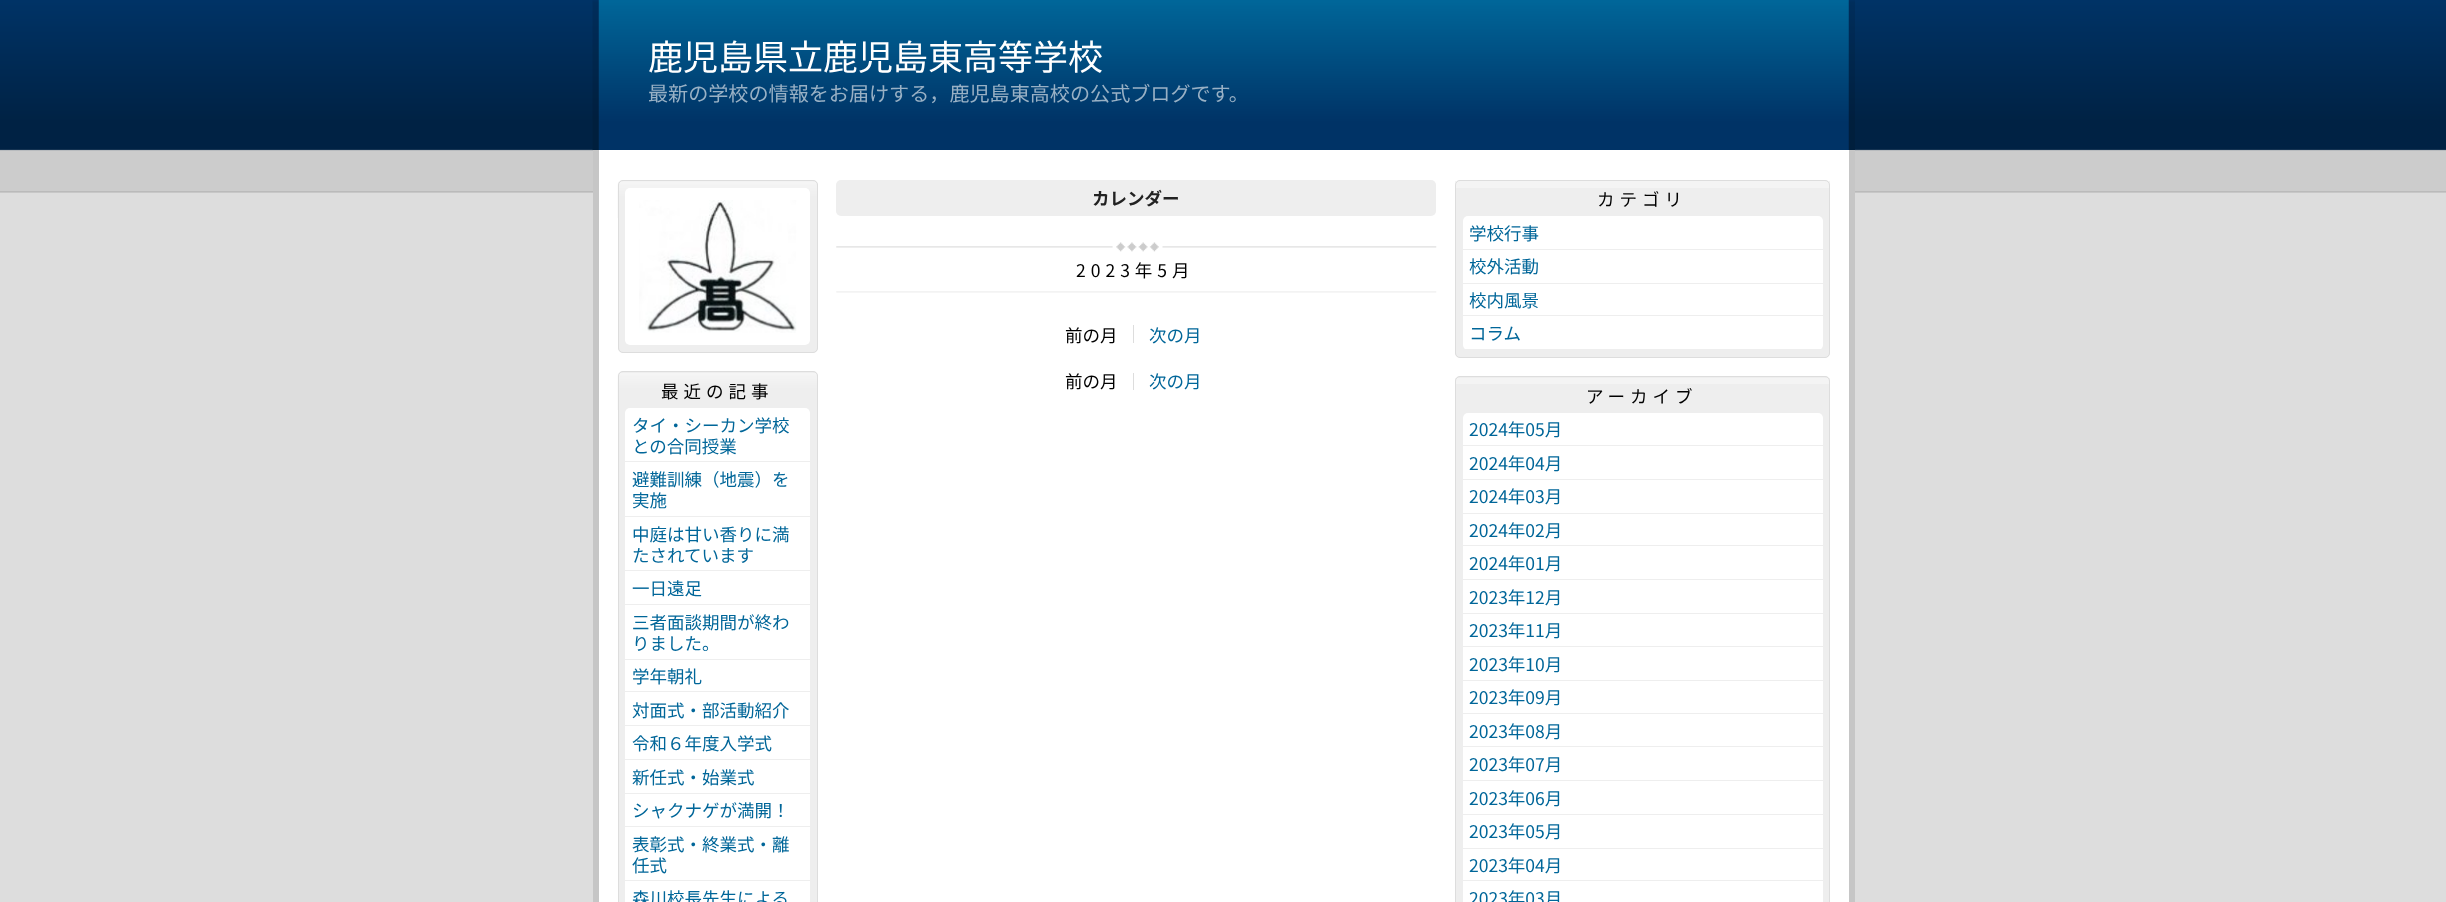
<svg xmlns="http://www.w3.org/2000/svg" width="2446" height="902">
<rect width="100%" height="100%" fill="#ddd"/>
<image x="0" y="0" width="2446" height="193" href="media/1.png"/>
<image x="592" y="0" width="1263" height="150" href="media/2.png"/>
<image x="598" y="0" width="1251" height="150" href="media/3.png"/>
<text x="648" y="70" style="font-family:Noto Sans JP;font-size:35px;fill:#fff">鹿児島県立鹿児島東高等学校</text>
<text x="648" y="101" style="font-family:Noto Sans JP;font-size:20.1px;fill:#99b1c5">最新の学校の情報をお届けする，鹿児島東高校の公式ブログです。</text>
<rect x="593" y="150" width="1262" height="752" fill="#c6c6c6"/>
<rect x="599" y="150" width="1250" height="752" fill="#fff"/>
<rect x="836" y="180" width="600" height="36" rx="5" fill="#eee"/>
<text x="1092" y="205" style="font-family:Noto Sans JP;font-size:17.5px;font-weight:bold;fill:#222">カレンダー</text>
<image x="836" y="242" width="601" height="51" href="media/4.png"/>
<text x="1076" y="277" style="font-family:Noto Sans JP;font-size:17.5px;letter-spacing:5px;fill:#000">2023年5月</text>
<rect x="1133" y="325" width="1" height="18" fill="#ddd"/>
<text x="1065" y="342" style="font-family:Noto Sans JP;font-size:17.5px;fill:#000">前の月</text>
<text x="1149" y="342" style="font-family:Noto Sans JP;font-size:17.5px;fill:#069">次の月</text>
<rect x="1133" y="373" width="1" height="17" fill="#ddd"/>
<text x="1065" y="388" style="font-family:Noto Sans JP;font-size:17.5px;fill:#000">前の月</text>
<text x="1149" y="388" style="font-family:Noto Sans JP;font-size:17.5px;fill:#069">次の月</text>
<rect x="618" y="180" width="200" height="173" rx="5" fill="#eee"/>
<image x="617" y="181" width="200" height="37" href="media/5.png"/>
<rect x="618.5" y="180.5" width="199" height="172" rx="4.5" fill="none" stroke="#ddd"/>
<rect x="625" y="188" width="185" height="157" rx="5" fill="#fff"/>
<image x="639" y="200" width="158" height="133" href="media/6.png"/>
<rect x="618" y="371" width="200" height="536" rx="5" fill="#eee"/>
<image x="617" y="373" width="200" height="37" href="media/7.png"/>
<rect x="618.5" y="371.5" width="199" height="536" rx="4.5" fill="none" stroke="#ddd"/>
<text x="661" y="398" style="font-family:Noto Sans JP;font-size:17.5px;letter-spacing:5px;fill:#000">最近の記事</text>
<rect x="625" y="408" width="185" height="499" rx="5" fill="#fff"/>
<rect x="625" y="461" width="185" height="1" fill="#eee"/>
<text x="632" y="432" style="font-family:Noto Sans JP;font-size:17.5px;fill:#069">タイ・シーカン学校</text>
<text x="632" y="453" style="font-family:Noto Sans JP;font-size:17.5px;fill:#069">との合同授業</text>
<rect x="625" y="516" width="185" height="1" fill="#eee"/>
<text x="632" y="486" style="font-family:Noto Sans JP;font-size:17.5px;fill:#069">避難訓練（地震）を</text>
<text x="632" y="507" style="font-family:Noto Sans JP;font-size:17.5px;fill:#069">実施</text>
<rect x="625" y="570" width="185" height="1" fill="#eee"/>
<text x="632" y="541" style="font-family:Noto Sans JP;font-size:17.5px;fill:#069">中庭は甘い香りに満</text>
<text x="632" y="562" style="font-family:Noto Sans JP;font-size:17.5px;fill:#069">たされています</text>
<rect x="625" y="604" width="185" height="1" fill="#eee"/>
<text x="632" y="595" style="font-family:Noto Sans JP;font-size:17.5px;fill:#069">一日遠足</text>
<rect x="625" y="659" width="185" height="1" fill="#eee"/>
<text x="632" y="629" style="font-family:Noto Sans JP;font-size:17.5px;fill:#069">三者面談期間が終わ</text>
<text x="632" y="650" style="font-family:Noto Sans JP;font-size:17.5px;fill:#069">りました。</text>
<rect x="625" y="691" width="185" height="1" fill="#eee"/>
<text x="632" y="683" style="font-family:Noto Sans JP;font-size:17.5px;fill:#069">学年朝礼</text>
<rect x="625" y="725" width="185" height="1" fill="#eee"/>
<text x="632" y="717" style="font-family:Noto Sans JP;font-size:17.5px;fill:#069">対面式・部活動紹介</text>
<rect x="625" y="759" width="185" height="1" fill="#eee"/>
<text x="632" y="750" style="font-family:Noto Sans JP;font-size:17.5px;fill:#069">令和６年度入学式</text>
<rect x="625" y="793" width="185" height="1" fill="#eee"/>
<text x="632" y="784" style="font-family:Noto Sans JP;font-size:17.5px;fill:#069">新任式・始業式</text>
<rect x="625" y="826" width="185" height="1" fill="#eee"/>
<text x="632" y="817" style="font-family:Noto Sans JP;font-size:17.5px;fill:#069">シャクナゲが満開！</text>
<rect x="625" y="880" width="185" height="1" fill="#eee"/>
<text x="632" y="851" style="font-family:Noto Sans JP;font-size:17.5px;fill:#069">表彰式・終業式・離</text>
<text x="632" y="872" style="font-family:Noto Sans JP;font-size:17.5px;fill:#069">任式</text>
<text x="632" y="905" style="font-family:Noto Sans JP;font-size:17.5px;fill:#069">森川校長先生による</text>
<rect x="1455" y="180" width="375" height="178" rx="5" fill="#eee"/>
<rect x="1455" y="181" width="375" height="7" fill="#f4f4f4"/>
<rect x="1455.5" y="180.5" width="374" height="177" rx="4.5" fill="none" stroke="#ddd"/>
<text x="1597" y="206" style="font-family:Noto Sans JP;font-size:17.5px;letter-spacing:5px;fill:#000">カテゴリ</text>
<rect x="1463" y="216" width="360" height="134" rx="5" fill="#fff"/>
<rect x="1463" y="249" width="360" height="1" fill="#eee"/>
<text x="1469" y="240" style="font-family:Noto Sans JP;font-size:17.5px;fill:#069">学校行事</text>
<rect x="1463" y="283" width="360" height="1" fill="#eee"/>
<text x="1469" y="273" style="font-family:Noto Sans JP;font-size:17.5px;fill:#069">校外活動</text>
<rect x="1463" y="315" width="360" height="1" fill="#eee"/>
<text x="1469" y="307" style="font-family:Noto Sans JP;font-size:17.5px;fill:#069">校内風景</text>
<rect x="1463" y="349" width="360" height="1" fill="#eee"/>
<text x="1469" y="340" style="font-family:Noto Sans JP;font-size:17.5px;fill:#069">コラム</text>
<rect x="1455" y="376" width="375" height="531" rx="5" fill="#eee"/>
<rect x="1455" y="378" width="375" height="6" fill="#f4f4f4"/>
<rect x="1455.5" y="376.5" width="374" height="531" rx="4.5" fill="none" stroke="#ddd"/>
<text x="1586" y="403" style="font-family:Noto Sans JP;font-size:17.5px;letter-spacing:5px;fill:#000">アーカイブ</text>
<rect x="1463" y="413" width="360" height="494" rx="5" fill="#fff"/>
<rect x="1463" y="445" width="360" height="1" fill="#eee"/>
<text x="1469" y="436" style="font-family:Noto Sans JP;font-size:17.5px;fill:#069">2024年05月</text>
<rect x="1463" y="479" width="360" height="1" fill="#eee"/>
<text x="1469" y="470" style="font-family:Noto Sans JP;font-size:17.5px;fill:#069">2024年04月</text>
<rect x="1463" y="513" width="360" height="1" fill="#eee"/>
<text x="1469" y="503" style="font-family:Noto Sans JP;font-size:17.5px;fill:#069">2024年03月</text>
<rect x="1463" y="545" width="360" height="1" fill="#eee"/>
<text x="1469" y="537" style="font-family:Noto Sans JP;font-size:17.5px;fill:#069">2024年02月</text>
<rect x="1463" y="579" width="360" height="1" fill="#eee"/>
<text x="1469" y="570" style="font-family:Noto Sans JP;font-size:17.5px;fill:#069">2024年01月</text>
<rect x="1463" y="613" width="360" height="1" fill="#eee"/>
<text x="1469" y="604" style="font-family:Noto Sans JP;font-size:17.5px;fill:#069">2023年12月</text>
<rect x="1463" y="646" width="360" height="1" fill="#eee"/>
<text x="1469" y="637" style="font-family:Noto Sans JP;font-size:17.5px;fill:#069">2023年11月</text>
<rect x="1463" y="680" width="360" height="1" fill="#eee"/>
<text x="1469" y="671" style="font-family:Noto Sans JP;font-size:17.5px;fill:#069">2023年10月</text>
<rect x="1463" y="713" width="360" height="1" fill="#eee"/>
<text x="1469" y="704" style="font-family:Noto Sans JP;font-size:17.5px;fill:#069">2023年09月</text>
<rect x="1463" y="746" width="360" height="1" fill="#eee"/>
<text x="1469" y="738" style="font-family:Noto Sans JP;font-size:17.5px;fill:#069">2023年08月</text>
<rect x="1463" y="780" width="360" height="1" fill="#eee"/>
<text x="1469" y="771" style="font-family:Noto Sans JP;font-size:17.5px;fill:#069">2023年07月</text>
<rect x="1463" y="814" width="360" height="1" fill="#eee"/>
<text x="1469" y="805" style="font-family:Noto Sans JP;font-size:17.5px;fill:#069">2023年06月</text>
<rect x="1463" y="848" width="360" height="1" fill="#eee"/>
<text x="1469" y="838" style="font-family:Noto Sans JP;font-size:17.5px;fill:#069">2023年05月</text>
<rect x="1463" y="880" width="360" height="1" fill="#eee"/>
<text x="1469" y="872" style="font-family:Noto Sans JP;font-size:17.5px;fill:#069">2023年04月</text>
<text x="1469" y="905" style="font-family:Noto Sans JP;font-size:17.5px;fill:#069">2023年03月</text>
</svg>
